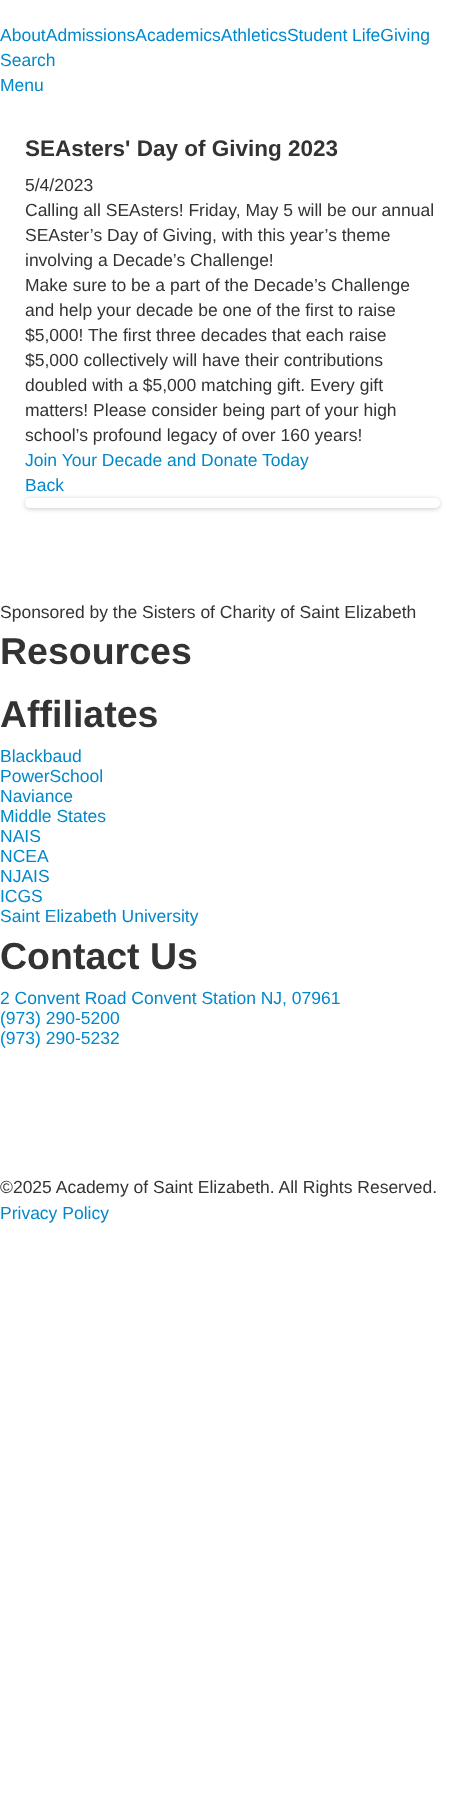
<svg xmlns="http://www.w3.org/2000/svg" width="465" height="1797">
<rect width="100%" height="100%" fill="#fff"/>
<text x="0" y="41" style="font-family:Liberation Sans;font-size:17.5px;fill:#08c">AboutAdmissionsAcademicsAthleticsStudent LifeGiving</text>
<text x="0" y="66" style="font-family:Liberation Sans;font-size:17.5px;fill:#08c">Search</text>
<text x="0" y="91" style="font-family:Liberation Sans;font-size:17.5px;fill:#08c">Menu</text>
<text x="25" y="156" style="font-family:Liberation Sans;font-size:22.5px;font-weight:bold;fill:#333">SEAsters' Day of Giving 2023</text>
<text x="25" y="191" style="font-family:Liberation Sans;font-size:17.5px;fill:#333">5/4/2023</text>
<text x="25" y="216" style="font-family:Liberation Sans;font-size:17.5px;fill:#333">Calling all SEAsters! Friday, May 5 will be our annual</text>
<text x="25" y="241" style="font-family:Liberation Sans;font-size:17.5px;fill:#333">SEAster’s Day of Giving, with this year’s theme</text>
<text x="25" y="266" style="font-family:Liberation Sans;font-size:17.5px;fill:#333">involving a Decade’s Challenge!</text>
<text x="25" y="291" style="font-family:Liberation Sans;font-size:17.5px;fill:#333">Make sure to be a part of the Decade’s Challenge</text>
<text x="25" y="316" style="font-family:Liberation Sans;font-size:17.5px;fill:#333">and help your decade be one of the first to raise</text>
<text x="25" y="341" style="font-family:Liberation Sans;font-size:17.5px;fill:#333">$5,000! The first three decades that each raise</text>
<text x="25" y="366" style="font-family:Liberation Sans;font-size:17.5px;fill:#333">$5,000 collectively will have their contributions</text>
<text x="25" y="391" style="font-family:Liberation Sans;font-size:17.5px;fill:#333">doubled with a $5,000 matching gift. Every gift</text>
<text x="25" y="416" style="font-family:Liberation Sans;font-size:17.5px;fill:#333">matters! Please consider being part of your high</text>
<text x="25" y="441" style="font-family:Liberation Sans;font-size:17.5px;fill:#333">school’s profound legacy of over 160 years!</text>
<text x="25" y="466" style="font-family:Liberation Sans;font-size:17.5px;fill:#08c">Join Your Decade and Donate Today</text>
<text x="25" y="491" style="font-family:Liberation Sans;font-size:17.5px;fill:#08c">Back</text>
<rect x="25" y="499" width="415" height="10" rx="5" fill="#00000033" filter="blur(2.5px)"/>
<rect x="25" y="498" width="415" height="10" rx="5" fill="#fff"/>
<text x="0" y="618" style="font-family:Liberation Sans;font-size:17.5px;fill:#333">Sponsored by the Sisters of Charity of Saint Elizabeth</text>
<text x="0" y="664" style="font-family:Liberation Sans;font-size:37.5px;font-weight:bold;fill:#333">Resources</text>
<text x="0" y="727" style="font-family:Liberation Sans;font-size:37.5px;font-weight:bold;fill:#333">Affiliates</text>
<text x="0" y="762" style="font-family:Liberation Sans;font-size:17.5px;fill:#08c">Blackbaud</text>
<text x="0" y="782" style="font-family:Liberation Sans;font-size:17.5px;fill:#08c">PowerSchool</text>
<text x="0" y="802" style="font-family:Liberation Sans;font-size:17.5px;fill:#08c">Naviance</text>
<text x="0" y="822" style="font-family:Liberation Sans;font-size:17.5px;fill:#08c">Middle States</text>
<text x="0" y="842" style="font-family:Liberation Sans;font-size:17.5px;fill:#08c">NAIS</text>
<text x="0" y="862" style="font-family:Liberation Sans;font-size:17.5px;fill:#08c">NCEA</text>
<text x="0" y="882" style="font-family:Liberation Sans;font-size:17.5px;fill:#08c">NJAIS</text>
<text x="0" y="902" style="font-family:Liberation Sans;font-size:17.5px;fill:#08c">ICGS</text>
<text x="0" y="922" style="font-family:Liberation Sans;font-size:17.5px;fill:#08c">Saint Elizabeth University</text>
<text x="0" y="969" style="font-family:Liberation Sans;font-size:37.5px;font-weight:bold;fill:#333">Contact Us</text>
<text x="0" y="1004" style="font-family:Liberation Sans;font-size:17.5px;fill:#08c">2 Convent Road Convent Station NJ, 07961</text>
<text x="0" y="1024" style="font-family:Liberation Sans;font-size:17.5px;fill:#08c">(973) 290-5200</text>
<text x="0" y="1044" style="font-family:Liberation Sans;font-size:17.5px;fill:#08c">(973) 290-5232</text>
<text x="0" y="1193" style="font-family:Liberation Sans;font-size:17.5px;fill:#333">©2025 Academy of Saint Elizabeth. All Rights Reserved.</text>
<text x="0" y="1219" style="font-family:Liberation Sans;font-size:17.5px;fill:#08c">Privacy Policy</text>
</svg>
